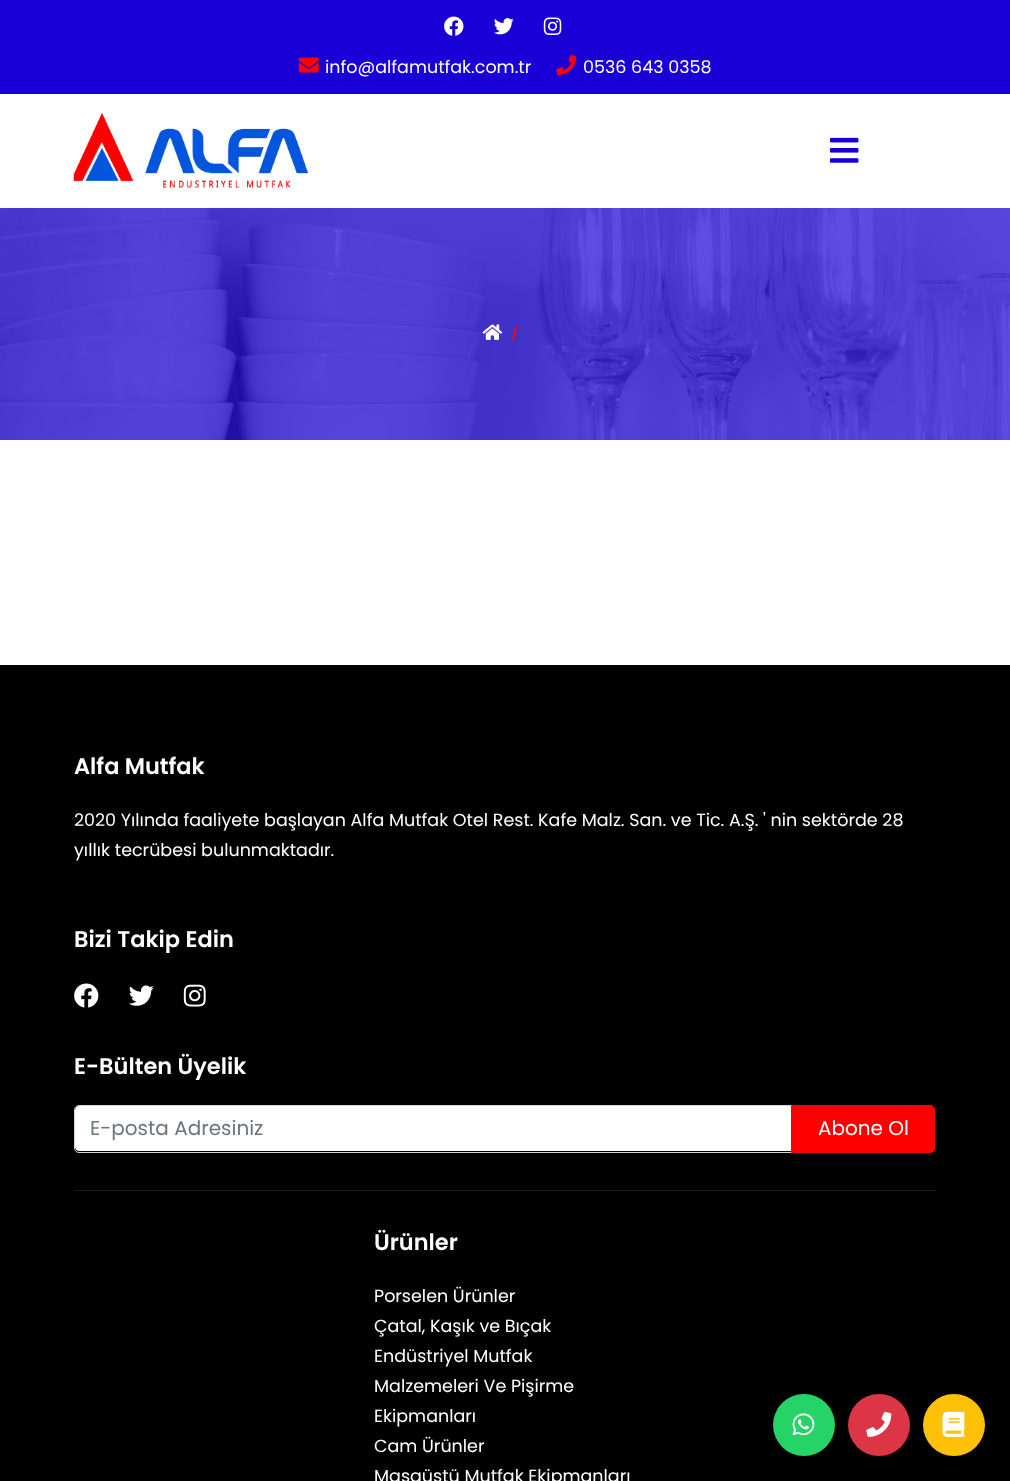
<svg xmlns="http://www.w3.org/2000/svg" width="1010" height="1481">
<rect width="100%" height="100%" fill="#fff"/>
<rect width="1010" height="94" fill="#1900d6"/>
<image x="444" y="16" width="20" height="20" href="media/1.png"/>
<image x="494" y="18" width="20" height="17" href="media/2.png"/>
<image x="543" y="17" width="19" height="18" href="media/3.png"/>
<image x="298" y="57" width="21" height="16" href="media/4.png"/>
<text x="325" y="73" style="font-family:Poppins;font-size:17.5px;fill:#fff">info@alfamutfak.com.tr</text>
<image x="556" y="55" width="21" height="20" href="media/5.png"/>
<text x="583" y="73" style="font-family:Poppins;font-size:17.5px;fill:#fff">0536 643 0358</text>
<image x="73" y="112" width="236" height="76" href="media/6.png"/>
<image x="830" y="137" width="29" height="26" href="media/7.png"/>
<rect y="208" width="1010" height="232" fill="#1900d6"/>
<image x="0" y="207" width="1010" height="233" href="media/8.png"/>
<image x="482" y="324" width="21" height="16" href="media/9.png"/>
<text x="512" y="338" style="font-family:Poppins;font-size:12px;font-weight:bold;fill:#f00">/</text>
<rect y="665" width="1010" height="816" fill="#000"/>
<text x="74" y="774" style="font-family:Poppins;font-size:22.5px;font-weight:600;fill:#fff">Alfa Mutfak</text>
<text x="74" y="826" style="font-family:Poppins;font-size:17.5px;fill:#fff">2020 Yılında faaliyete başlayan Alfa Mutfak Otel Rest. Kafe Malz. San. ve Tic. A.Ş. ' nin sektörde 28</text>
<text x="74" y="856" style="font-family:Poppins;font-size:17.5px;fill:#fff">yıllık tecrübesi bulunmaktadır.</text>
<text x="74" y="947" style="font-family:Poppins;font-size:22.5px;font-weight:600;fill:#fff">Bizi Takip Edin</text>
<image x="74" y="983" width="25" height="25" href="media/10.png"/>
<image x="128" y="985" width="26" height="21" href="media/11.png"/>
<image x="183" y="984" width="23" height="23" href="media/12.png"/>
<text x="74" y="1074" style="font-family:Poppins;font-size:22.5px;font-weight:600;fill:#fff">E-Bülten Üyelik</text>
<path d="M79 1106h712v45h-712c-2 0-4-2-4-4v-37c0-2 2-4 4-4z" fill="#fff"/>
<path d="M79 1105.5h713.5v47h-713.5c-2.5 0-4.5-2-4.5-4.5v-38c0-2.5 2-4.5 4.5-4.5z" fill="none" stroke="#ced4da"/>
<text x="90" y="1135" style="font-family:Poppins;font-size:20px;fill:#6c757d">E-posta Adresiniz</text>
<path d="M791.5 1105.5h138.5c2.5 0 4.5 2 4.5 4.5v38c0 2.5-2 4.5-4.5 4.5h-138.5z" fill="#f00" stroke="#f00"/>
<text x="818" y="1135" style="font-family:Poppins;font-size:20px;fill:#fff">Abone Ol</text>
<rect x="74" y="1190" width="862" height="1" fill="#1a1a1a"/>
<text x="374" y="1250" style="font-family:Poppins;font-size:22.5px;font-weight:600;fill:#fff">Ürünler</text>
<text x="374" y="1302" style="font-family:Poppins;font-size:17.5px;fill:#fff">Porselen Ürünler</text>
<text x="374" y="1332" style="font-family:Poppins;font-size:17.5px;fill:#fff">Çatal, Kaşık ve Bıçak</text>
<text x="374" y="1362" style="font-family:Poppins;font-size:17.5px;fill:#fff">Endüstriyel Mutfak</text>
<text x="374" y="1392" style="font-family:Poppins;font-size:17.5px;fill:#fff">Malzemeleri Ve Pişirme</text>
<text x="374" y="1422" style="font-family:Poppins;font-size:17.5px;fill:#fff">Ekipmanları</text>
<text x="374" y="1452" style="font-family:Poppins;font-size:17.5px;fill:#fff">Cam Ürünler</text>
<text x="374" y="1482" style="font-family:Poppins;font-size:17.5px;fill:#fff">Masaüstü Mutfak Ekipmanları</text>
<circle cx="804" cy="1425" r="31" fill="#25d366"/>
<image x="792" y="1413" width="23" height="23" href="media/13.png"/>
<circle cx="879" cy="1425" r="31" fill="#dc3545"/>
<image x="866" y="1411" width="26" height="26" href="media/14.png"/>
<circle cx="954" cy="1425" r="31" fill="#ffc107"/>
<image x="942" y="1411" width="23" height="26" href="media/15.png"/>
</svg>
